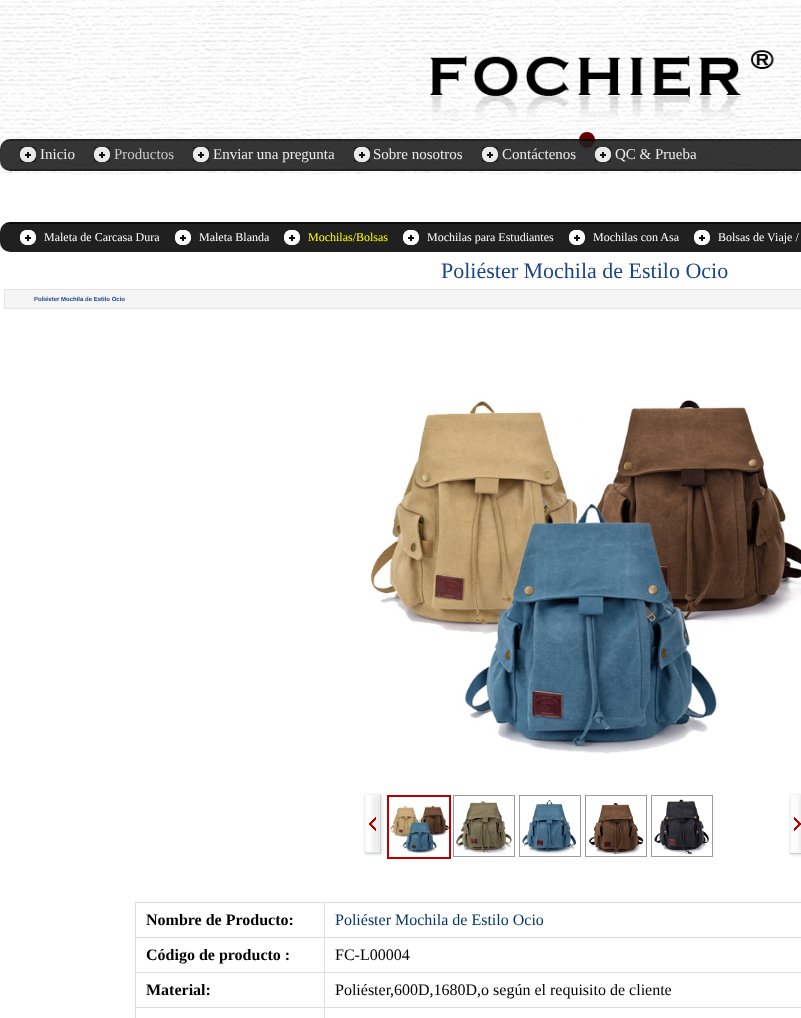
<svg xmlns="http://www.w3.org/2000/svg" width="801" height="1018">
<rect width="100%" height="100%" fill="#fff"/>
<image x="0" y="0" width="801" height="174" href="media/1.png"/>
<circle cx="587" cy="140" r="7" fill="#600" stroke="#600" stroke-width="2"/>
<image x="0" y="139" width="801" height="32" href="media/2.png"/>
<image x="20" y="147" width="16" height="15" href="media/3.png"/>
<text x="40" y="159" style="font-family:Liberation Serif;font-size:15px;fill:#ebebeb">Inicio</text>
<image x="94" y="147" width="16" height="15" href="media/4.png"/>
<text x="114" y="159" style="font-family:Liberation Serif;font-size:15px;fill:#c9c9c9">Productos</text>
<image x="193" y="147" width="16" height="15" href="media/5.png"/>
<text x="213" y="159" style="font-family:Liberation Serif;font-size:15px;fill:#ebebeb">Enviar una pregunta</text>
<image x="354" y="147" width="16" height="15" href="media/6.png"/>
<text x="373" y="159" style="font-family:Liberation Serif;font-size:15px;fill:#ebebeb">Sobre nosotros</text>
<image x="482" y="147" width="16" height="15" href="media/7.png"/>
<text x="502" y="159" style="font-family:Liberation Serif;font-size:15px;fill:#ebebeb">Contáctenos</text>
<image x="595" y="147" width="16" height="15" href="media/8.png"/>
<text x="615" y="159" style="font-family:Liberation Serif;font-size:15px;fill:#ebebeb">QC &amp; Prueba</text>
<image x="0" y="222" width="801" height="30" href="media/9.png"/>
<image x="20" y="230" width="16" height="15" href="media/10.png"/>
<text x="44" y="241" style="font-family:Liberation Serif;font-size:12px;fill:#fff">Maleta de Carcasa Dura</text>
<image x="175" y="230" width="16" height="15" href="media/10.png"/>
<text x="199" y="241" style="font-family:Liberation Serif;font-size:12px;fill:#fff">Maleta Blanda</text>
<image x="284" y="230" width="16" height="15" href="media/10.png"/>
<text x="308" y="241" style="font-family:Liberation Serif;font-size:12px;fill:#ff0">Mochilas/Bolsas</text>
<image x="403" y="230" width="16" height="15" href="media/10.png"/>
<text x="427" y="241" style="font-family:Liberation Serif;font-size:12px;fill:#fff">Mochilas para Estudiantes</text>
<image x="569" y="230" width="16" height="15" href="media/10.png"/>
<text x="593" y="241" style="font-family:Liberation Serif;font-size:12px;fill:#fff">Mochilas con Asa</text>
<image x="694" y="230" width="16" height="15" href="media/10.png"/>
<text x="718" y="241" style="font-family:Liberation Serif;font-size:12px;fill:#fff">Bolsas de Viaje /</text>
<text x="441" y="278" style="font-family:Liberation Serif;font-size:22px;fill:#1c4587">Poliéster Mochila de Estilo Ocio</text>
<rect x="4.5" y="289.5" width="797" height="19" fill="#f5f5f5" stroke="#e5e5e5"/>
<text x="34" y="301" style="font-family:Liberation Sans;font-size:6px;font-weight:bold;fill:#1c4587">Poliéster Mochila de Estilo Ocio</text>
<image x="369" y="398" width="432" height="356" href="media/11.png"/>
<image x="363" y="793" width="21" height="64" href="media/12.png"/>
<rect x="388" y="796" width="62" height="62" fill="none" stroke="#b90000" stroke-width="2"/>
<image x="390" y="805" width="59" height="49" href="media/13.png"/>
<rect x="453.5" y="795.5" width="61" height="61" fill="none" stroke="#9c9c9c"/>
<image x="456" y="801" width="56" height="53" href="media/14.png"/>
<rect x="519.5" y="795.5" width="61" height="61" fill="none" stroke="#9c9c9c"/>
<image x="522" y="799" width="55" height="55" href="media/15.png"/>
<rect x="585.5" y="795.5" width="61" height="61" fill="none" stroke="#9c9c9c"/>
<image x="589" y="802" width="55" height="53" href="media/16.png"/>
<rect x="651.5" y="795.5" width="61" height="61" fill="none" stroke="#9c9c9c"/>
<image x="654" y="799" width="55" height="56" href="media/17.png"/>
<image x="789" y="793" width="12" height="64" href="media/18.png"/>
<rect x="324" y="902" width="477" height="1" fill="#ddd"/>
<rect x="324" y="937" width="477" height="1" fill="#ddd"/>
<rect x="324" y="972" width="477" height="1" fill="#ddd"/>
<rect x="324" y="1007" width="477" height="1" fill="#ddd"/>
<rect x="324" y="1007" width="1" height="11" fill="#ddd"/>
<rect x="135" y="1007" width="190" height="1" fill="#ddd"/>
<rect x="324" y="972" width="1" height="36" fill="#ddd"/>
<rect x="135" y="972" width="190" height="1" fill="#ddd"/>
<rect x="324" y="937" width="1" height="36" fill="#ddd"/>
<rect x="135" y="937" width="190" height="1" fill="#ddd"/>
<rect x="324" y="902" width="1" height="36" fill="#ddd"/>
<rect x="135" y="902" width="190" height="1" fill="#ddd"/>
<rect x="135" y="1007" width="1" height="11" fill="#ddd"/>
<rect x="135" y="972" width="1" height="36" fill="#ddd"/>
<rect x="135" y="937" width="1" height="36" fill="#ddd"/>
<rect x="135" y="902" width="1" height="36" fill="#ddd"/>
<text x="146" y="925" style="font-family:Liberation Serif;font-size:16px;font-weight:bold;fill:#000">Nombre de Producto:</text>
<text x="335" y="925" style="font-family:Liberation Serif;font-size:16px;fill:#073763">Poliéster Mochila de Estilo Ocio</text>
<text x="146" y="960" style="font-family:Liberation Serif;font-size:16px;font-weight:bold;fill:#000">Código de producto :</text>
<text x="335" y="960" style="font-family:Liberation Serif;font-size:16px;fill:#000">FC-L00004</text>
<text x="146" y="995" style="font-family:Liberation Serif;font-size:16px;font-weight:bold;fill:#000">Material:</text>
<text x="335" y="995" style="font-family:Liberation Serif;font-size:16px;fill:#000">Poliéster</text>
<text x="390" y="995" style="font-family:Liberation Serif;font-size:16px;fill:#000">,600D,1680D,o según el requisito de cliente</text>
</svg>
